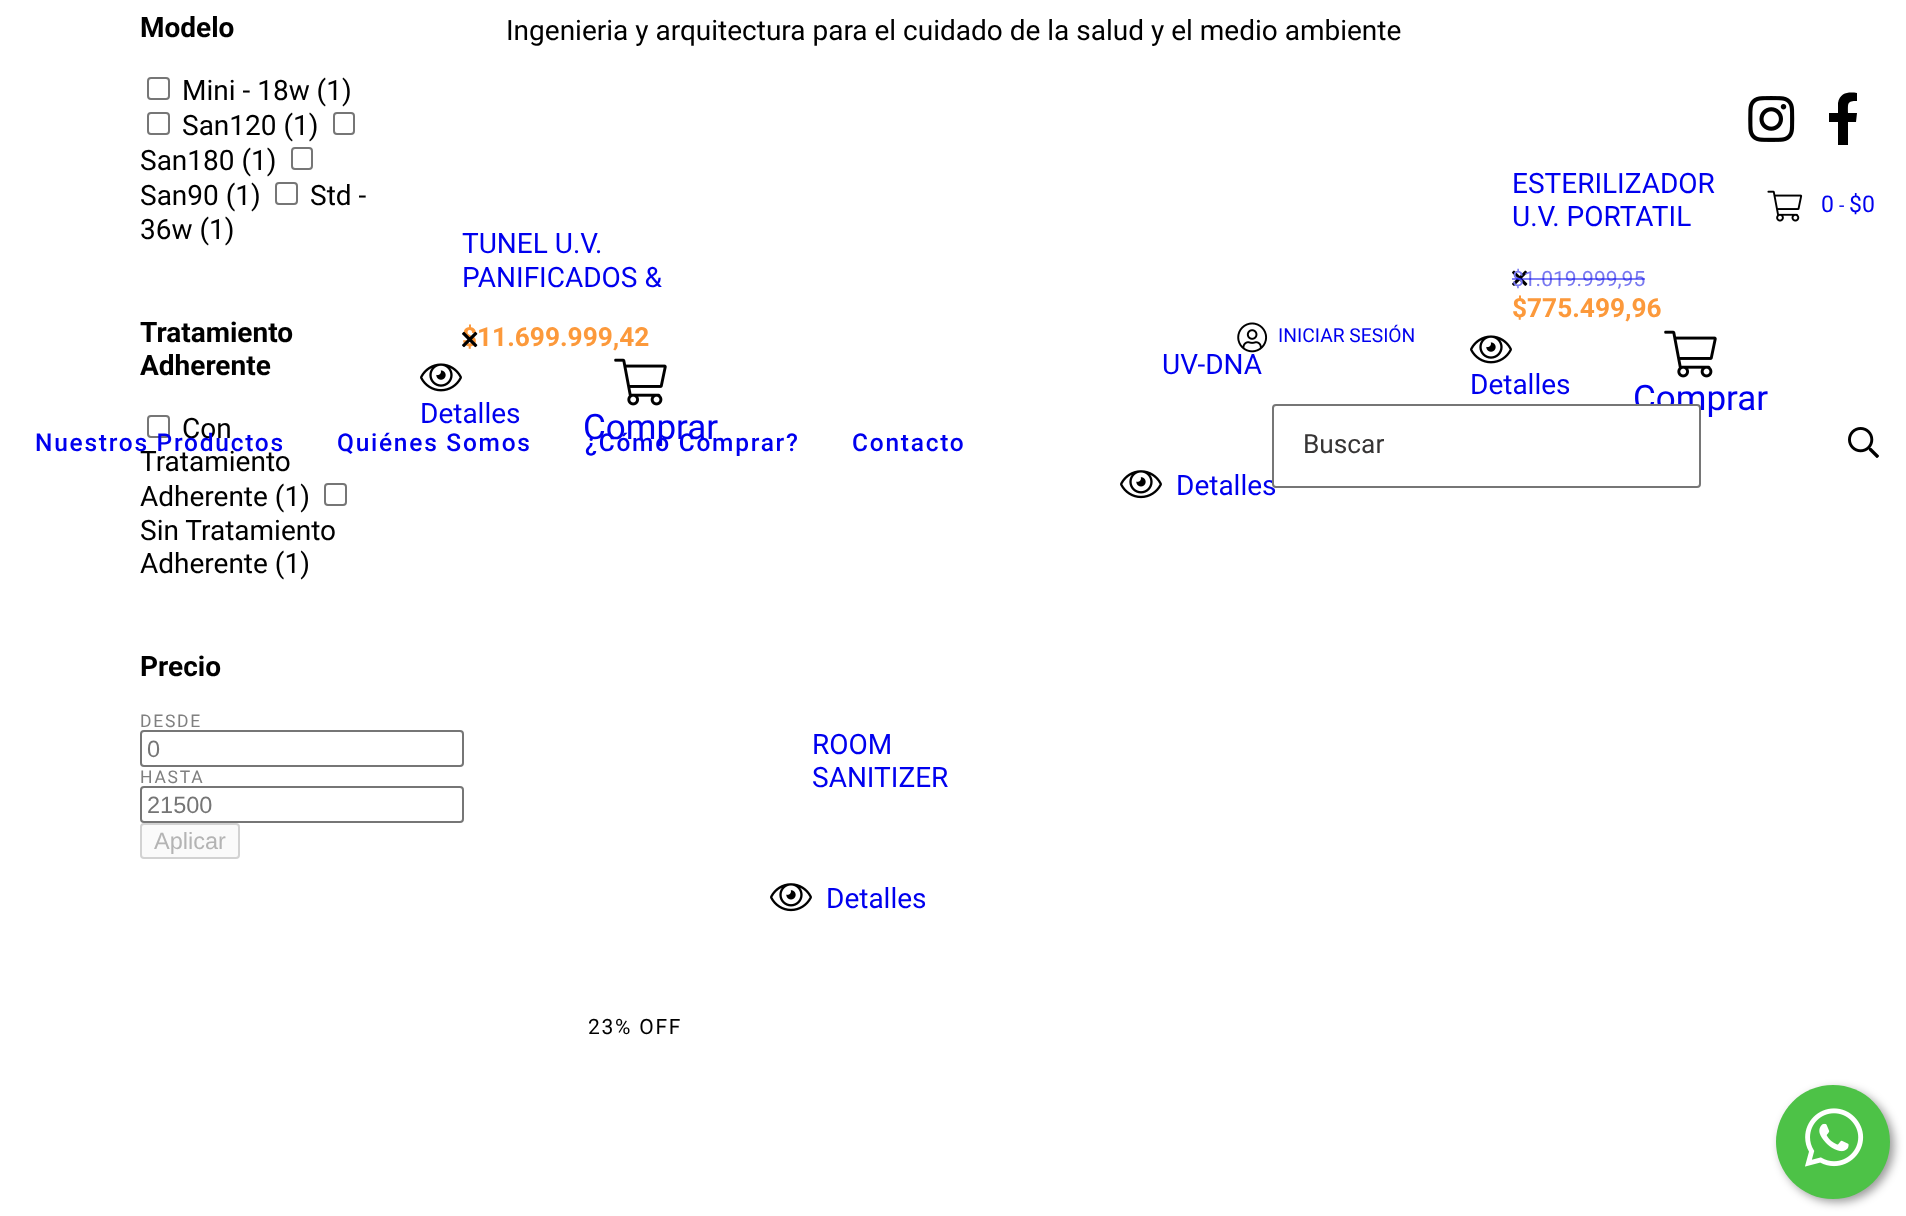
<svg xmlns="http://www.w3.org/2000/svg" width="1906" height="1216">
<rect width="100%" height="100%" fill="#fff"/>
<text x="140" y="37" style="font-family:Roboto;font-size:28px;font-weight:bold;fill:#000">Modelo</text>
<rect x="148" y="78" width="21" height="21" rx="3" fill="none" stroke="#767676" stroke-width="2"/>
<text x="182" y="100" style="font-family:Roboto;font-size:28px;fill:#000">Mini - 18w (1)</text>
<rect x="148" y="113" width="21" height="21" rx="3" fill="none" stroke="#767676" stroke-width="2"/>
<text x="182" y="135" style="font-family:Roboto;font-size:28px;fill:#000">San120 (1)</text>
<rect x="334" y="113" width="20" height="21" rx="3" fill="none" stroke="#767676" stroke-width="2"/>
<text x="140" y="170" style="font-family:Roboto;font-size:28px;fill:#000">San180 (1)</text>
<rect x="292" y="148" width="20" height="21" rx="3" fill="none" stroke="#767676" stroke-width="2"/>
<text x="140" y="205" style="font-family:Roboto;font-size:28px;fill:#000">San90 (1)</text>
<rect x="276" y="183" width="21" height="21" rx="3" fill="none" stroke="#767676" stroke-width="2"/>
<text x="310" y="205" style="font-family:Roboto;font-size:28px;fill:#000">Std -</text>
<text x="140" y="239" style="font-family:Roboto;font-size:28px;fill:#000">36w (1)</text>
<text x="140" y="342" style="font-family:Roboto;font-size:28px;font-weight:bold;fill:#000">Tratamiento</text>
<text x="140" y="375" style="font-family:Roboto;font-size:28px;font-weight:bold;fill:#000">Adherente</text>
<rect x="148" y="416" width="21" height="21" rx="3" fill="none" stroke="#767676" stroke-width="2"/>
<text x="182" y="438" style="font-family:Roboto;font-size:28px;fill:#000">Con</text>
<text x="140" y="471" style="font-family:Roboto;font-size:28px;fill:#000">Tratamiento</text>
<text x="140" y="506" style="font-family:Roboto;font-size:28px;fill:#000">Adherente (1)</text>
<rect x="325" y="484" width="21" height="21" rx="3" fill="none" stroke="#767676" stroke-width="2"/>
<text x="140" y="540" style="font-family:Roboto;font-size:28px;fill:#000">Sin Tratamiento</text>
<text x="140" y="573" style="font-family:Roboto;font-size:28px;fill:#000">Adherente (1)</text>
<text x="140" y="676" style="font-family:Roboto;font-size:28px;font-weight:bold;fill:#000">Precio</text>
<text x="140" y="727" style="font-family:Roboto;font-size:17.5px;letter-spacing:1.75px;fill:#808080">DESDE</text>
<rect x="141" y="731" width="322" height="35" rx="3" fill="none" stroke="#767676" stroke-width="2"/>
<text x="147" y="757" style="font-family:Liberation Sans;font-size:23.5px;fill:#757575">0</text>
<text x="140" y="783" style="font-family:Roboto;font-size:17.5px;letter-spacing:1.75px;fill:#808080">HASTA</text>
<rect x="141" y="787" width="322" height="35" rx="3" fill="none" stroke="#767676" stroke-width="2"/>
<text x="147" y="813" style="font-family:Liberation Sans;font-size:23.5px;fill:#757575">21500</text>
<rect x="141" y="824" width="98" height="34" rx="3" fill="#fafafa" stroke="#d2d2d2" stroke-width="2"/>
<text x="154" y="849" style="font-family:Liberation Sans;font-size:23.5px;fill:#b4b4b4">Aplicar</text>
<text x="462" y="253" style="font-family:Roboto;font-size:28px;fill:#00e">TUNEL U.V.</text>
<text x="462" y="287" style="font-family:Roboto;font-size:28px;fill:#00e">PANIFICADOS &amp;</text>
<text x="462" y="346" style="font-family:Roboto;font-size:26.25px;font-weight:bold;fill:#fc993b">$11.699.999,42</text>
<image x="462" y="331" width="16" height="17" href="media/1.png"/>
<image x="420" y="363" width="42" height="29" href="media/2.png"/>
<text x="420" y="423" style="font-family:Roboto;font-size:28px;fill:#00e">Detalles</text>
<image x="614" y="358" width="53" height="48" href="media/3.png"/>
<text x="583" y="439" style="font-family:Roboto;font-size:35px;fill:#00e">Comprar</text>
<text x="1162" y="374" style="font-family:Roboto;font-size:28px;fill:#00e">UV-DNA</text>
<image x="1120" y="470" width="42" height="29" href="media/4.png"/>
<text x="1176" y="495" style="font-family:Roboto;font-size:28px;fill:#00e">Detalles</text>
<text x="1512" y="193" style="font-family:Roboto;font-size:28px;fill:#00e">ESTERILIZADOR</text>
<text x="1512" y="226" style="font-family:Roboto;font-size:28px;fill:#00e">U.V. PORTATIL</text>
<image x="1512" y="270" width="16" height="16" href="media/5.png"/>
<text x="1512" y="286" style="font-family:Roboto;font-size:21px;fill:#7979f0">$1.019.999,95</text>
<rect x="1512" y="278" width="133" height="2" fill="#0000ee80"/>
<text x="1512" y="317" style="font-family:Roboto;font-size:26.25px;font-weight:bold;fill:#fc993b">$775.499,96</text>
<image x="1470" y="335" width="42" height="29" href="media/2.png"/>
<text x="1470" y="394" style="font-family:Roboto;font-size:28px;fill:#00e">Detalles</text>
<image x="1664" y="330" width="53" height="48" href="media/3.png"/>
<text x="1633" y="410" style="font-family:Roboto;font-size:35px;fill:#00e">Comprar</text>
<text x="812" y="754" style="font-family:Roboto;font-size:28px;fill:#00e">ROOM</text>
<text x="812" y="787" style="font-family:Roboto;font-size:28px;fill:#00e">SANITIZER</text>
<image x="770" y="883" width="42" height="29" href="media/6.png"/>
<text x="826" y="908" style="font-family:Roboto;font-size:28px;fill:#00e">Detalles</text>
<text x="588" y="1034" style="font-family:Roboto;font-size:21px;letter-spacing:1.75px;fill:#000">23% OFF</text>
<text x="506" y="40" style="font-family:Roboto;font-size:28px;fill:#000">Ingenieria y arquitectura para el cuidado de la salud y el medio ambiente</text>
<image x="1748" y="96" width="47" height="46" href="media/7.png"/>
<path d="M1856 122l1-9h-9c0-10-1-12 9-12v-8c-8-1-17-1-19 10v10h-9v9h9v23h10v-23z" fill="#000"/>
<image x="1767" y="190" width="36" height="32" href="media/8.png"/>
<text x="1821" y="212" style="font-family:Roboto;font-size:23px;fill:#00e">0</text>
<text x="1839" y="212" style="font-family:Roboto;font-size:19.25px;fill:#00e">-</text>
<text x="1849" y="212" style="font-family:Roboto;font-size:23px;fill:#00e">$0</text>
<image x="1237" y="322" width="31" height="31" href="media/9.png"/>
<text x="1278" y="342" style="font-family:Roboto;font-size:19.25px;fill:#00e">INICIAR SESIÓN</text>
<text x="35" y="451" style="font-family:Roboto;font-size:24.5px;font-weight:500;letter-spacing:1.75px;fill:#00e">Nuestros Productos</text>
<text x="337" y="451" style="font-family:Roboto;font-size:24.5px;font-weight:500;letter-spacing:1.75px;fill:#00e">Quiénes Somos</text>
<text x="585" y="451" style="font-family:Roboto;font-size:24.5px;font-weight:500;letter-spacing:1.75px;fill:#00e">¿Cómo Comprar?</text>
<text x="852" y="451" style="font-family:Roboto;font-size:24.5px;font-weight:500;letter-spacing:1.75px;fill:#00e">Contacto</text>
<rect x="1273" y="405" width="427" height="82" rx="3" fill="#fff" stroke="#767676" stroke-width="2"/>
<text x="1303" y="453" style="font-family:Roboto;font-size:26.25px;fill:#373535">Buscar</text>
<image x="1848" y="427" width="31" height="31" href="media/10.png"/>
<rect x="1780" y="1089" width="114" height="113" rx="56.5" fill="#00000066" filter="blur(5px)"/>
<circle cx="1833" cy="1142" r="57" fill="#4dc247"/>
<image x="1805" y="1108" width="59" height="59" href="media/11.png"/>
</svg>
